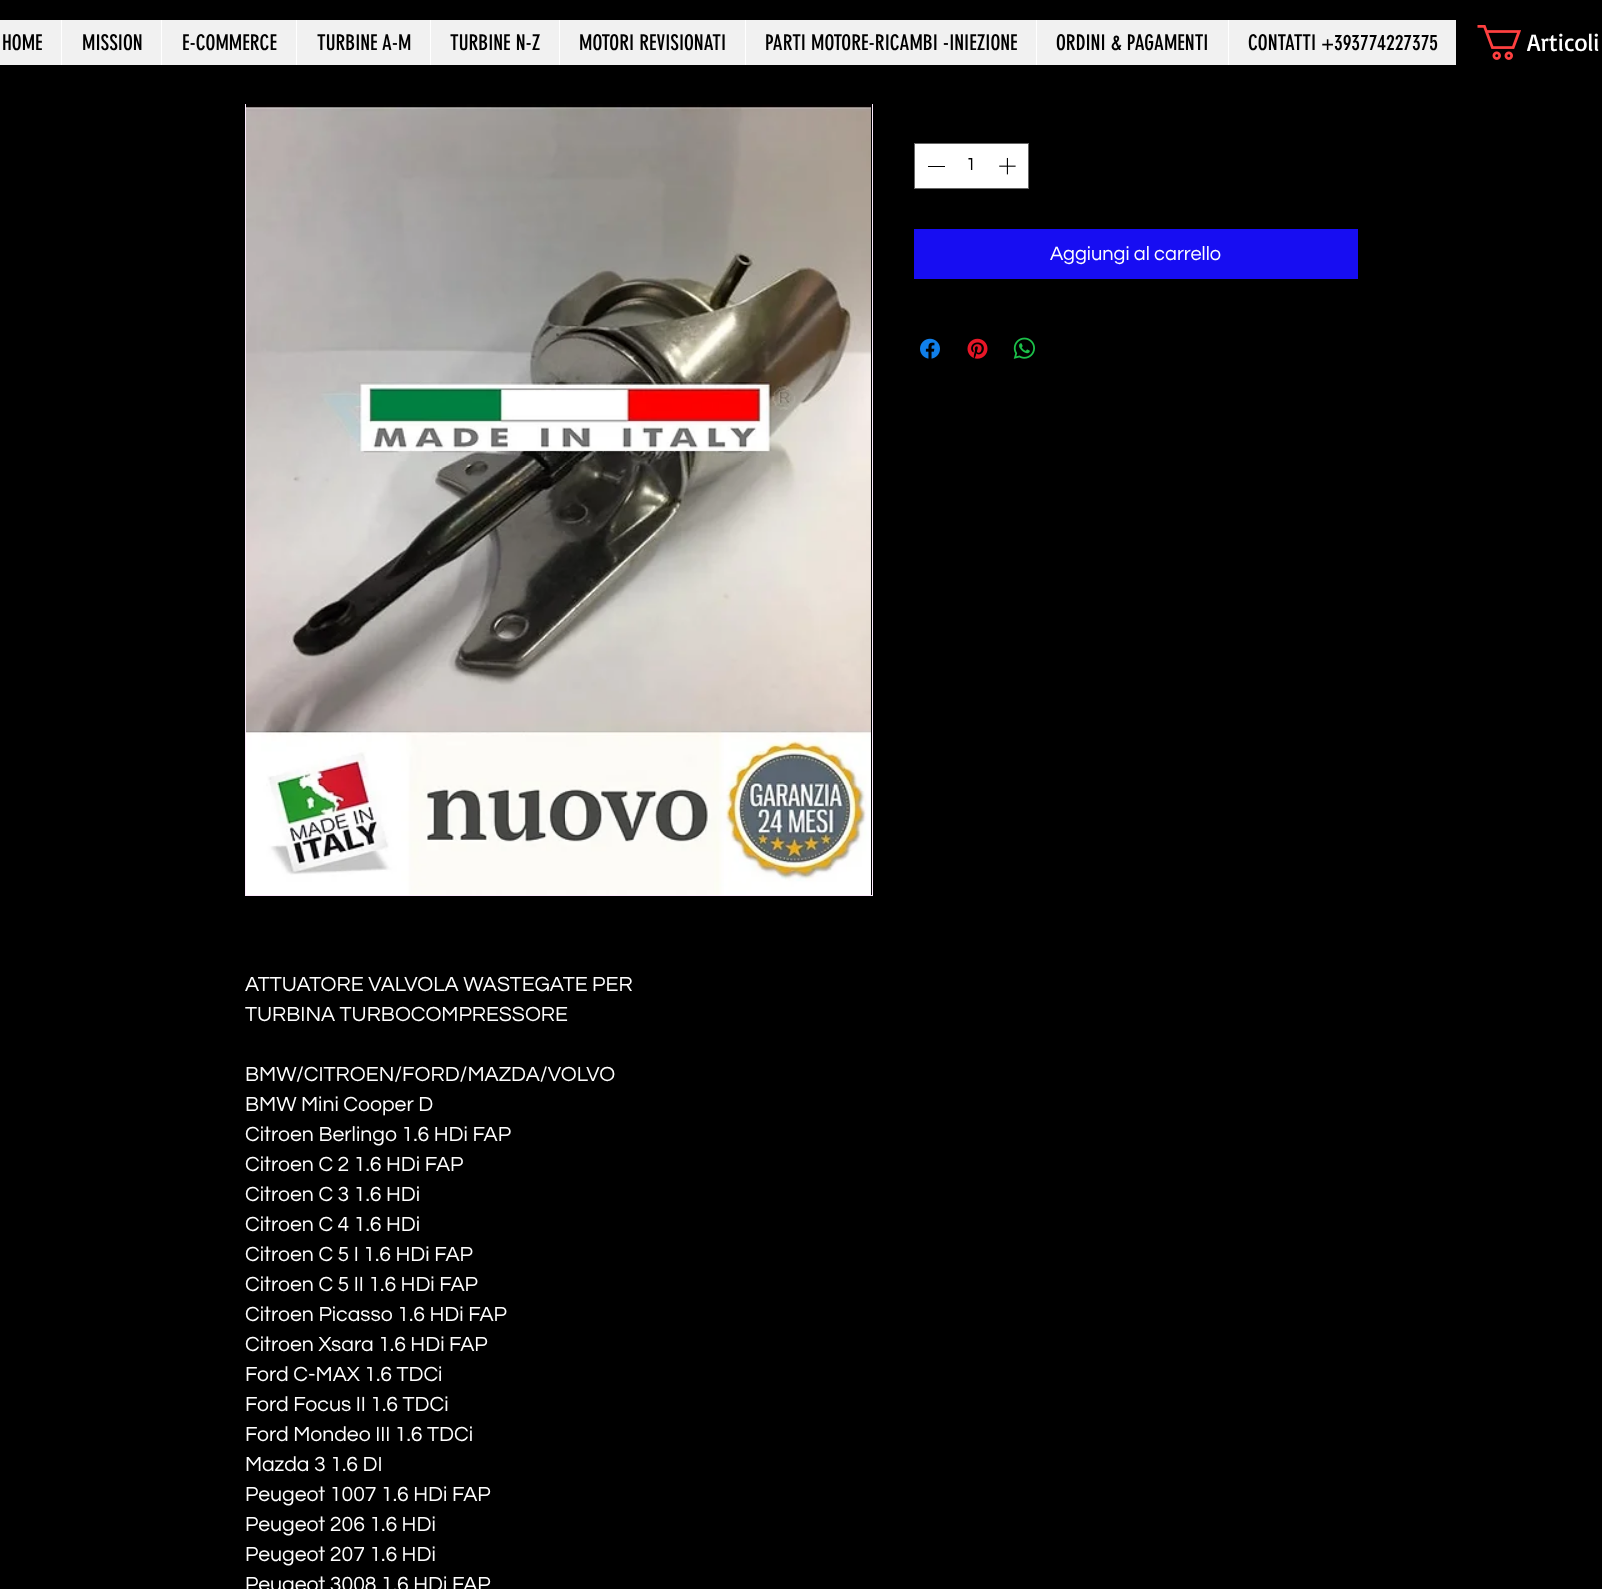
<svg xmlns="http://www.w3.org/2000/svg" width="1602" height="1589">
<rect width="100%" height="100%" fill="#000"/>
<rect x="245.5" y="-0.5" width="627" height="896" fill="none" stroke="#ffebff"/>
<rect x="245" width="628" height="104" fill="#000"/>
<rect y="20" width="1456" height="45" fill="#f1f1f1"/>
<text x="2" y="50" style="font-family:'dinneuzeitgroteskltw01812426';font-size:21.25px;fill:#000">HOME</text>
<rect x="61" y="20" width="1" height="45" fill="#fff"/>
<text x="82" y="50" style="font-family:'dinneuzeitgroteskltw01812426';font-size:21.25px;fill:#000">MISSION</text>
<rect x="161" y="20" width="1" height="45" fill="#fff"/>
<text x="182" y="50" style="font-family:'dinneuzeitgroteskltw01812426';font-size:21.25px;fill:#000">E-COMMERCE</text>
<rect x="296" y="20" width="1" height="45" fill="#fff"/>
<text x="317" y="50" style="font-family:'dinneuzeitgroteskltw01812426';font-size:21.25px;fill:#000">TURBINE A-M</text>
<rect x="430" y="20" width="1" height="45" fill="#fff"/>
<text x="450" y="50" style="font-family:'dinneuzeitgroteskltw01812426';font-size:21.25px;fill:#000">TURBINE N-Z</text>
<rect x="559" y="20" width="1" height="45" fill="#fff"/>
<text x="579" y="50" style="font-family:'dinneuzeitgroteskltw01812426';font-size:21.25px;fill:#000">MOTORI REVISIONATI</text>
<rect x="745" y="20" width="1" height="45" fill="#fff"/>
<text x="765" y="50" style="font-family:'dinneuzeitgroteskltw01812426';font-size:21.25px;fill:#000">PARTI MOTORE-RICAMBI -INIEZIONE</text>
<rect x="1036" y="20" width="1" height="45" fill="#fff"/>
<text x="1056" y="50" style="font-family:'dinneuzeitgroteskltw01812426';font-size:21.25px;fill:#000">ORDINI &amp; PAGAMENTI</text>
<rect x="1228" y="20" width="1" height="45" fill="#fff"/>
<text x="1248" y="50" style="font-family:'dinneuzeitgroteskltw01812426';font-size:21.25px;fill:#000">CONTATTI +393774227375</text>
<image x="1477" y="25" width="44" height="35" href="media/1.png"/>
<text x="1527" y="51" style="font-family:Basic;font-size:24.5px;fill:#fff">Articoli</text>
<rect x="914.5" y="143.5" width="114" height="45" fill="#fff" stroke="#666"/>
<rect x="928" y="166" width="17" height="1" fill="#000"/>
<text x="966" y="170" style="font-family:Questrial;font-size:18px;fill:#000">1</text>
<image x="999" y="157" width="17" height="18" href="media/2.png"/>
<rect x="914" y="229" width="444" height="50" fill="#170df2"/>
<text x="1050" y="260" style="font-family:Questrial;font-size:20px;fill:#fff">Aggiungi al carrello</text>
<image x="920" y="338" width="20" height="21" href="media/3.png"/>
<image x="967" y="338" width="21" height="21" href="media/4.png"/>
<image x="1013" y="337" width="22" height="22" href="media/5.png"/>
<image x="246" y="104" width="625" height="791" href="media/6.png"/>
<text x="245" y="991" style="font-family:Questrial;font-size:21.25px;fill:#fff">ATTUATORE VALVOLA WASTEGATE PER</text>
<text x="245" y="1021" style="font-family:Questrial;font-size:21.25px;fill:#fff">TURBINA TURBOCOMPRESSORE</text>
<text x="245" y="1081" style="font-family:Questrial;font-size:21.25px;fill:#fff">BMW/CITROEN/FORD/MAZDA/VOLVO</text>
<text x="245" y="1111" style="font-family:Questrial;font-size:21.25px;fill:#fff">BMW Mini Cooper D</text>
<text x="245" y="1141" style="font-family:Questrial;font-size:21.25px;fill:#fff">Citroen Berlingo 1.6 HDi FAP</text>
<text x="245" y="1171" style="font-family:Questrial;font-size:21.25px;fill:#fff">Citroen C 2 1.6 HDi FAP</text>
<text x="245" y="1201" style="font-family:Questrial;font-size:21.25px;fill:#fff">Citroen C 3 1.6 HDi</text>
<text x="245" y="1231" style="font-family:Questrial;font-size:21.25px;fill:#fff">Citroen C 4 1.6 HDi</text>
<text x="245" y="1261" style="font-family:Questrial;font-size:21.25px;fill:#fff">Citroen C 5 I 1.6 HDi FAP</text>
<text x="245" y="1291" style="font-family:Questrial;font-size:21.25px;fill:#fff">Citroen C 5 II 1.6 HDi FAP</text>
<text x="245" y="1321" style="font-family:Questrial;font-size:21.25px;fill:#fff">Citroen Picasso 1.6 HDi FAP</text>
<text x="245" y="1351" style="font-family:Questrial;font-size:21.25px;fill:#fff">Citroen Xsara 1.6 HDi FAP</text>
<text x="245" y="1381" style="font-family:Questrial;font-size:21.25px;fill:#fff">Ford C-MAX 1.6 TDCi</text>
<text x="245" y="1411" style="font-family:Questrial;font-size:21.25px;fill:#fff">Ford Focus II 1.6 TDCi</text>
<text x="245" y="1441" style="font-family:Questrial;font-size:21.25px;fill:#fff">Ford Mondeo III 1.6 TDCi</text>
<text x="245" y="1471" style="font-family:Questrial;font-size:21.25px;fill:#fff">Mazda 3 1.6 DI</text>
<text x="245" y="1501" style="font-family:Questrial;font-size:21.25px;fill:#fff">Peugeot 1007 1.6 HDi FAP</text>
<text x="245" y="1531" style="font-family:Questrial;font-size:21.25px;fill:#fff">Peugeot 206 1.6 HDi</text>
<text x="245" y="1561" style="font-family:Questrial;font-size:21.25px;fill:#fff">Peugeot 207 1.6 HDi</text>
<text x="245" y="1591" style="font-family:Questrial;font-size:21.25px;fill:#fff">Peugeot 3008 1.6 HDi FAP</text>
</svg>
